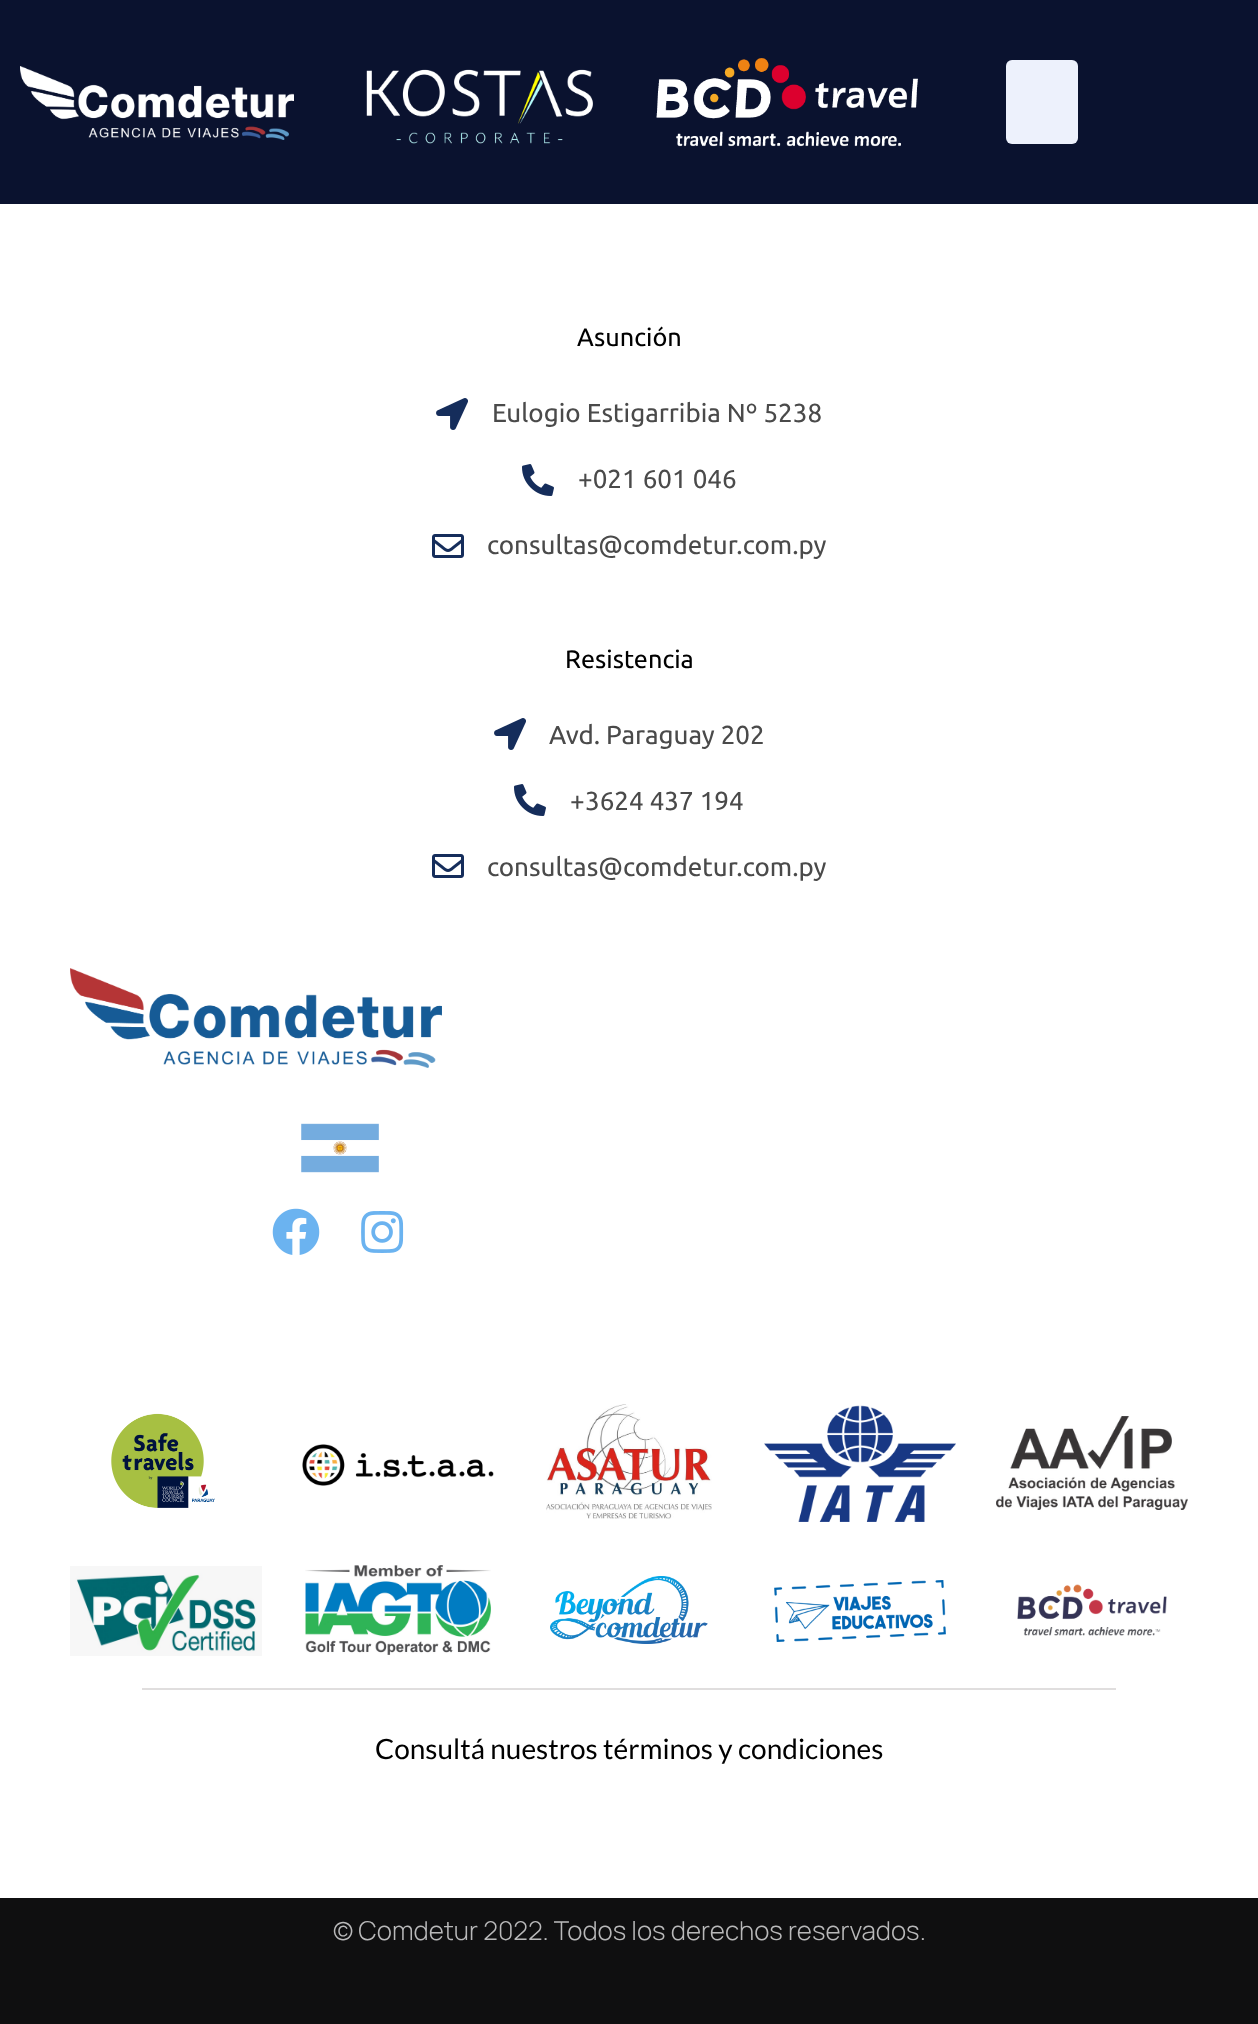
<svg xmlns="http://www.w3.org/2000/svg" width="1258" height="2024">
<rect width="100%" height="100%" fill="#fff"/>
<rect width="1258" height="204" fill="#0a122f"/>
<image x="20" y="66" width="274" height="74" href="media/1.png"/>
<image x="366" y="69" width="227" height="75" href="media/2.png"/>
<image x="656" y="58" width="262" height="89" href="media/3.png"/>
<rect x="1006" y="60" width="72" height="84" rx="6" fill="#edf1fc"/>
<text x="577" y="346" style="font-family:Ubuntu;font-size:25.25px;fill:#000">Asunción</text>
<image x="436" y="398" width="32" height="32" href="media/4.png"/>
<text x="492" y="422" style="font-family:Ubuntu;font-size:26px;fill:#4a4a4a">Eulogio Estigarribia Nº 5238</text>
<image x="522" y="464" width="32" height="32" href="media/5.png"/>
<text x="578" y="488" style="font-family:Ubuntu;font-size:26px;fill:#4a4a4a">+021 601 046</text>
<image x="432" y="534" width="32" height="24" href="media/6.png"/>
<text x="487" y="554" style="font-family:Ubuntu;font-size:26px;fill:#4a4a4a">consultas@comdetur.com.py</text>
<text x="565" y="668" style="font-family:Ubuntu;font-size:25.25px;fill:#000">Resistencia</text>
<image x="494" y="718" width="32" height="32" href="media/4.png"/>
<text x="549" y="744" style="font-family:Ubuntu;font-size:26px;fill:#4a4a4a">Avd. Paraguay 202</text>
<image x="514" y="784" width="32" height="32" href="media/5.png"/>
<text x="570" y="810" style="font-family:Ubuntu;font-size:26px;fill:#4a4a4a">+</text>
<text x="585" y="810" style="font-family:Ubuntu;font-size:26px;fill:#4a4a4a">3624 437 194</text>
<image x="432" y="854" width="32" height="24" href="media/6.png"/>
<text x="487" y="876" style="font-family:Ubuntu;font-size:26px;fill:#4a4a4a">consultas@comdetur.com.py</text>
<image x="70" y="968" width="372" height="100" href="media/7.png"/>
<image x="301" y="1123" width="78" height="50" href="media/8.png"/>
<image x="272" y="1208" width="48" height="47" href="media/9.png"/>
<image x="361" y="1211" width="43" height="42" href="media/10.png"/>
<image x="111" y="1413" width="104" height="95" href="media/11.png"/>
<image x="302" y="1444" width="192" height="42" href="media/12.png"/>
<image x="546" y="1404" width="166" height="115" href="media/13.png"/>
<image x="764" y="1405" width="192" height="117" href="media/14.png"/>
<image x="996" y="1416" width="192" height="94" href="media/15.png"/>
<image x="70" y="1566" width="192" height="90" href="media/16.png"/>
<image x="305" y="1565" width="186" height="90" href="media/17.png"/>
<image x="550" y="1576" width="158" height="68" href="media/18.png"/>
<image x="774" y="1580" width="172" height="62" href="media/19.png"/>
<image x="1017" y="1584" width="150" height="52" href="media/20.png"/>
<rect x="142" y="1688" width="974" height="2" fill="#e0dede"/>
<text x="375" y="1759" style="font-family:Lato;font-size:28px;fill:#000">Consultá nuestros términos y condiciones</text>
<rect y="1898" width="1258" height="126" fill="#0f0f10"/>
<text x="333" y="1940" style="font-family:Manrope;font-size:26px;font-weight:300;fill:#b9b9ba">© Comdetur 2022. Todos los derechos reservados.</text>
</svg>
